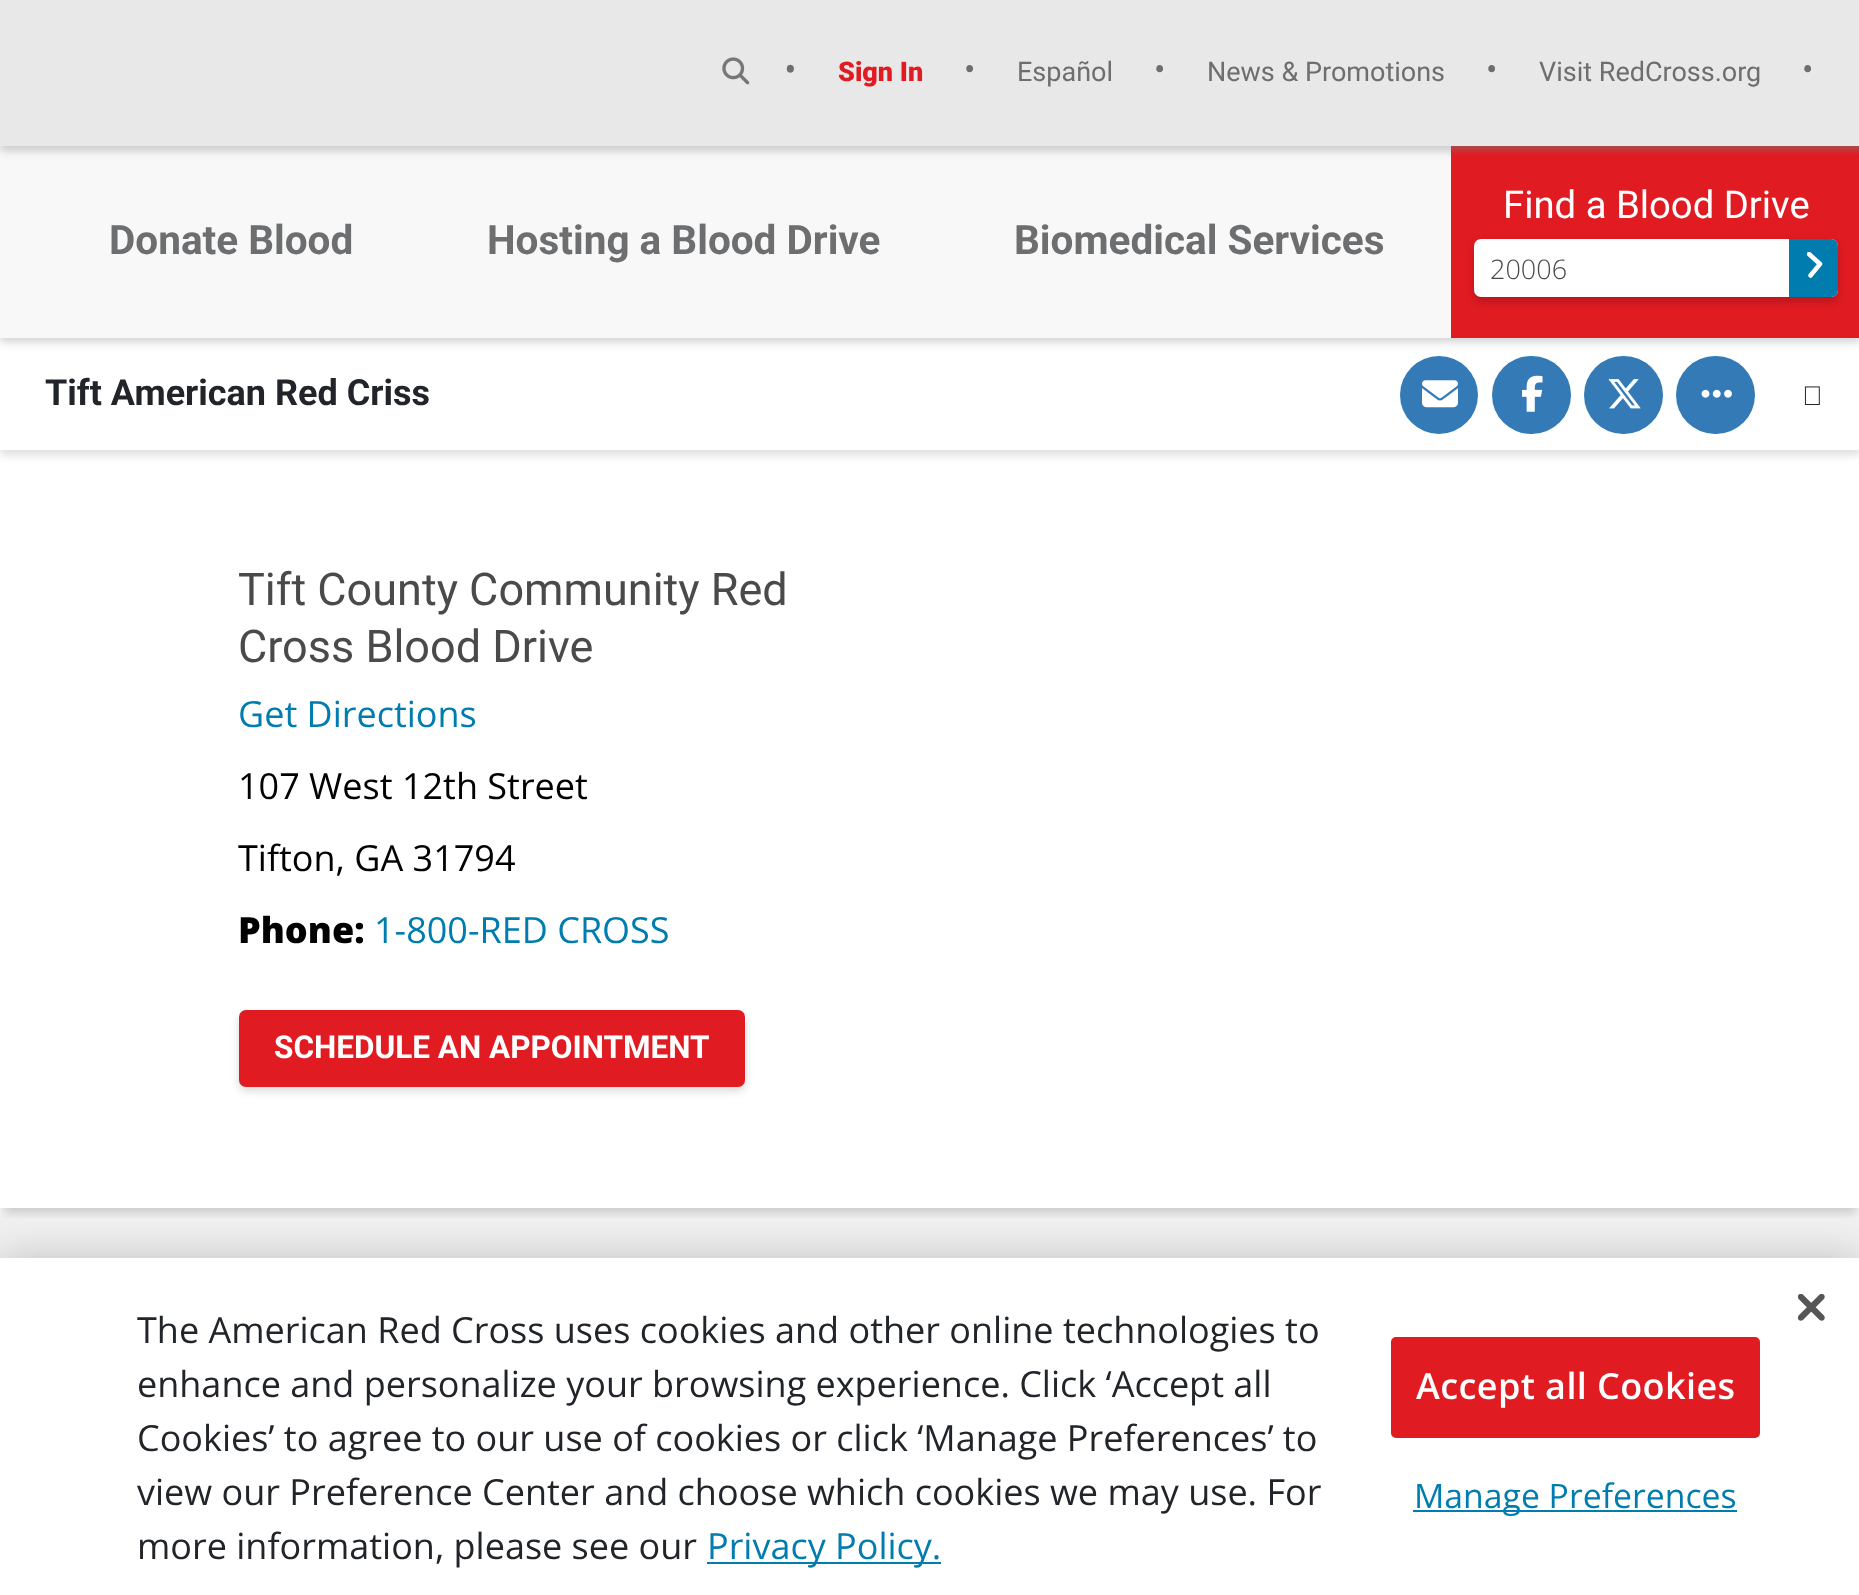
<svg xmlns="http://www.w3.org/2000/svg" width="1859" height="1595">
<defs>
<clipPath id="clip1"><rect x="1" y="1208" width="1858" height="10"/></clipPath>
<linearGradient id="g1" gradientUnits="userSpaceOnUse" x1="1656" y1="146" x2="1656" y2="155"><stop offset="0" stop-color="#ab4a4a"/><stop offset="1" stop-color="#e11b22"/></linearGradient>
<clipPath id="clip2"><rect x="1807" y="252" width="16" height="27"/></clipPath>
</defs>
<rect width="100%" height="100%" fill="#fff"/>
<rect y="342" width="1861" height="113" fill="#00000021" filter="blur(4.5px)"/>
<rect y="1208" width="1859" height="50" fill="#f0f0f0"/>
<g clip-path="url(#clip1)">
<rect x="5" y="464" width="1851" height="749" fill="#00000026" filter="blur(4.5px)"/>
</g>
<rect y="338" width="1859" height="112" fill="#fff"/>
<circle cx="1439" cy="395" r="39" fill="#337ab7"/>
<rect x="1492" y="356" width="79" height="78" rx="39" fill="#337ab7"/>
<rect x="1584" y="356" width="79" height="78" rx="39" fill="#337ab7"/>
<rect x="1676" y="356" width="79" height="78" rx="39" fill="#337ab7"/>
<rect y="5" width="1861" height="337" fill="#0000002e" filter="blur(4.5px)"/>
<rect y="146" width="1451" height="192" fill="#f8f8f8"/>
<rect y="5" width="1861" height="146" fill="#0000002e" filter="blur(4.5px)"/>
<rect width="1859" height="146" fill="#e8e8e8"/>
<image x="722" y="57" width="28" height="28" href="media/1.png"/>
<text x="784" y="81" style="font-family:Open Sans;font-size:33.75px;fill:#6d6e70">•</text>
<text x="838" y="81" style="font-family:Roboto;font-size:27px;font-weight:900;fill:#e11b22">Sign In</text>
<text x="964" y="81" style="font-family:Roboto;font-size:33.75px;fill:#6d6e70">•</text>
<text x="1017" y="81" style="font-family:Roboto;font-size:27px;fill:#6d6e70">Español</text>
<text x="1154" y="81" style="font-family:Roboto;font-size:33.75px;fill:#6d6e70">•</text>
<text x="1207" y="81" style="font-family:Roboto;font-size:27px;fill:#6d6e70">News &amp; Promotions</text>
<text x="1486" y="81" style="font-family:Roboto;font-size:33.75px;fill:#6d6e70">•</text>
<text x="1539" y="81" style="font-family:Roboto;font-size:27px;fill:#6d6e70">Visit RedCross.org</text>
<text x="1802" y="81" style="font-family:Roboto;font-size:33.75px;fill:#6d6e70">•</text>
<text x="109" y="254" style="font-family:Roboto;font-size:40.5px;font-weight:bold;fill:#6d6e70">Donate Blood</text>
<text x="487" y="254" style="font-family:Roboto;font-size:40.5px;font-weight:bold;fill:#6d6e70">Hosting a Blood Drive</text>
<text x="1014" y="254" style="font-family:Roboto;font-size:40.5px;font-weight:bold;fill:#6d6e70">Biomedical Services</text>
<rect x="1451" y="155" width="408" height="183" fill="#e11b22"/>
<rect x="1451" y="146" width="408" height="9" fill="url(#g1)"/>
<text x="1503" y="218" style="font-family:Roboto;font-size:38.25px;fill:#fff">Find a Blood Drive</text>
<rect x="1474" y="243" width="364" height="59" rx="7" fill="#0000002e" filter="blur(4.5px)"/>
<rect x="1474" y="239" width="364" height="58" rx="7" fill="#fff"/>
<text x="1490" y="279" style="font-family:Open Sans;font-size:27px;font-weight:300;fill:#4a4a4a">20006</text>
<path d="M1789 239h42c4 0 7 3 7 7v44c0 4-3 7-7 7h-42z" fill="#007caf"/>
<g clip-path="url(#clip2)">
<path d="M1809 254l11 10l-9.5 11.5" fill="none" stroke="#fff" stroke-width="4.5" stroke-linecap="round" stroke-linejoin="round"/>
</g>
<text x="45" y="405" style="font-family:Roboto;font-size:36px;font-weight:bold;fill:#212529">Tift American Red Criss</text>
<image x="1422" y="380" width="36" height="28" href="media/2.png"/>
<image x="1522" y="375" width="21" height="37" href="media/3.png"/>
<image x="1608" y="379" width="33" height="30" href="media/4.png"/>
<image x="1701" y="389" width="31" height="9" href="media/5.png"/>
<image x="1804" y="386" width="16" height="19" href="media/6.png"/>
<text x="238" y="605" style="font-family:Roboto;font-size:45px;fill:#4a4a4a">Tift County Community Red</text>
<text x="238" y="662" style="font-family:Roboto;font-size:45px;fill:#4a4a4a">Cross Blood Drive</text>
<text x="238" y="727" style="font-family:Open Sans;font-size:36px;fill:#007caf">Get Directions</text>
<text x="238" y="799" style="font-family:Open Sans;font-size:36px;fill:#000">107 West 12th Street</text>
<text x="238" y="871" style="font-family:Open Sans;font-size:36px;fill:#000">Tifton, GA 31794</text>
<text x="238" y="943" style="font-family:Open Sans;font-size:36px;font-weight:800;fill:#000">Phone:</text>
<text x="374" y="943" style="font-family:Open Sans;font-size:36px;fill:#007caf">1-800-RED CROSS</text>
<rect x="239" y="1015" width="506" height="76" rx="7" fill="#00000026" filter="blur(4.5px)"/>
<rect x="239" y="1010" width="506" height="77" rx="7" fill="#e11b22"/>
<text x="274" y="1058" style="font-family:Roboto;font-size:31.5px;font-weight:bold;fill:#fff">SCHEDULE AN APPOINTMENT</text>
<rect y="1258" width="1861" height="337" fill="#00000033" filter="blur(20px)"/>
<rect y="1258" width="1859" height="337" fill="#fff"/>
<image x="1798" y="1294" width="27" height="27" href="media/7.png"/>
<text x="137" y="1343" style="font-family:Open Sans;font-size:36px;fill:#212529">The American Red Cross uses cookies and other online technologies to</text>
<text x="137" y="1397" style="font-family:Open Sans;font-size:36px;fill:#212529">enhance and personalize your browsing experience. Click ‘Accept all</text>
<text x="137" y="1451" style="font-family:Open Sans;font-size:36px;fill:#212529">Cookies’ to agree to our use of cookies or click ‘Manage Preferences’ to</text>
<text x="137" y="1505" style="font-family:Open Sans;font-size:36px;fill:#212529">view our Preference Center and choose which cookies we may use. For</text>
<text x="137" y="1559" style="font-family:Open Sans;font-size:36px;fill:#212529">more information, please see our</text>
<rect x="707" y="1562" width="234" height="2" fill="#007caf"/>
<text x="707" y="1559" style="font-family:Open Sans;font-size:36px;fill:#007caf">Privacy Policy.</text>
<rect x="1392" y="1338" width="367" height="99" rx="4" fill="#e11b22" stroke="#e11b22" stroke-width="2"/>
<text x="1416" y="1399" style="font-family:Open Sans;font-size:36px;font-weight:600;letter-spacing:0.4px;fill:#fff">Accept all Cookies</text>
<rect x="1413" y="1510" width="324" height="2" fill="#007caf"/>
<text x="1414" y="1508" style="font-family:Open Sans;font-size:33.75px;fill:#007caf">Manage Preferences</text>
</svg>
